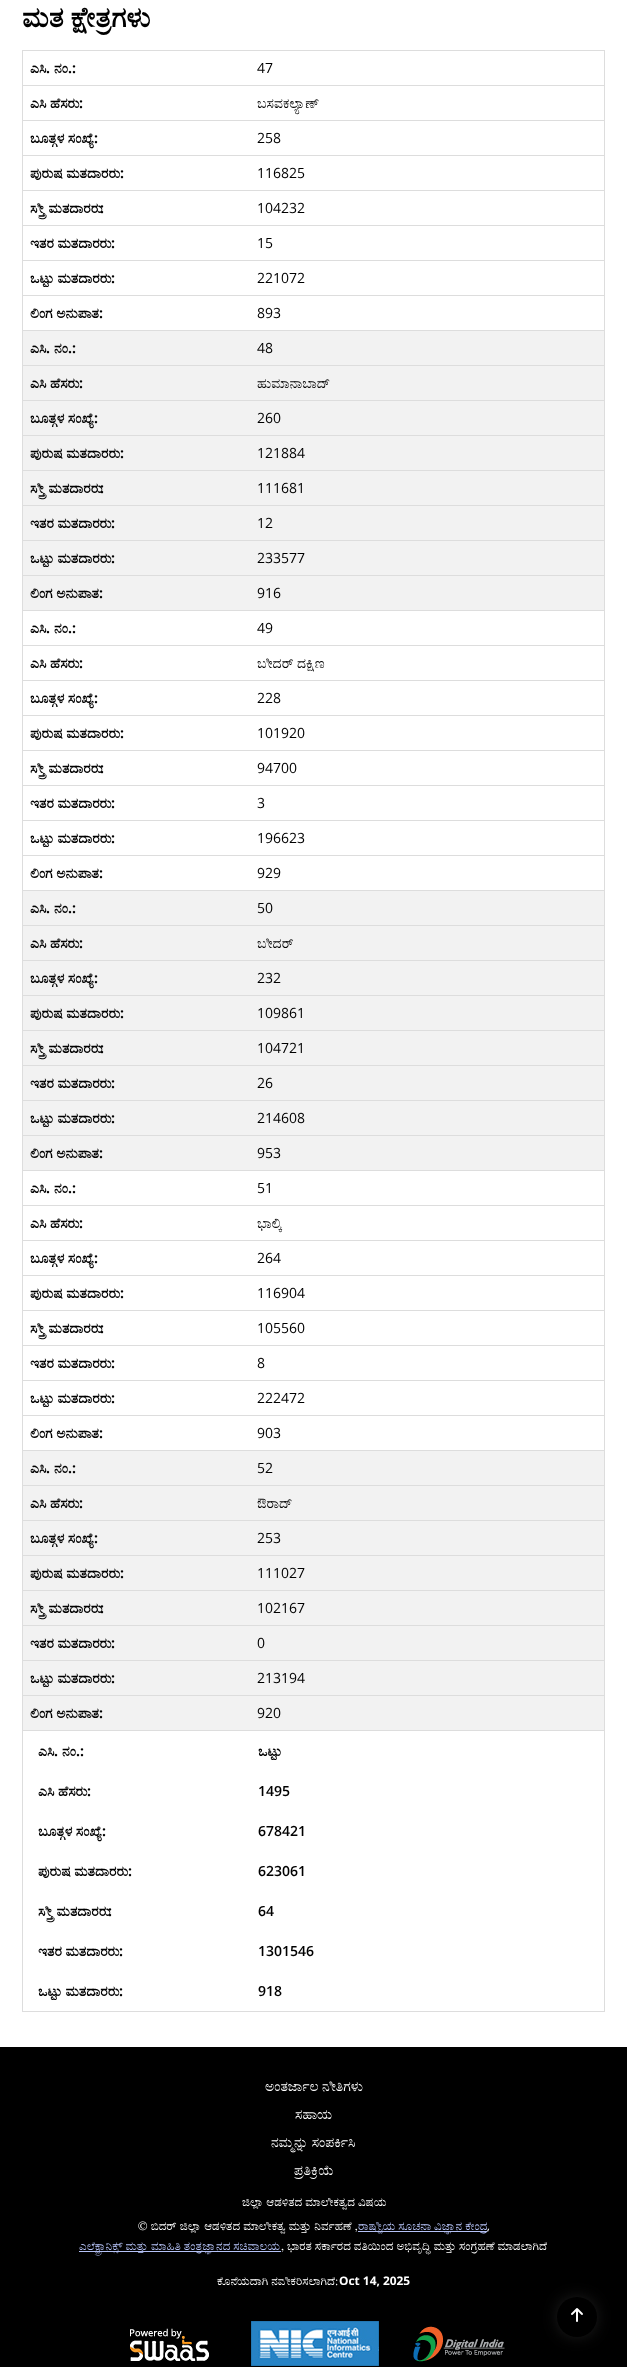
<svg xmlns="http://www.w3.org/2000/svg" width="627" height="2367">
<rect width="100%" height="100%" fill="#fff"/>
<text x="22" y="27" style="font-family:FreeSerif;font-size:28px;font-weight:bold;fill:#000">ಮತ ಕ್ಷೇತ್ರಗಳು</text>
<rect x="22" y="50" width="583" height="1" fill="#ddd"/>
<rect x="604" y="50" width="1" height="1962" fill="#ddd"/>
<rect x="22" y="2011" width="583" height="1" fill="#ddd"/>
<rect x="22" y="50" width="1" height="1962" fill="#ddd"/>
<rect x="23" y="85" width="581" height="1" fill="#ddd"/>
<text x="30" y="73" style="font-family:FreeSerif;font-size:14px;font-weight:bold;fill:#000">ಎಸಿ</text>
<text x="46" y="73" style="font-family:Open Sans;font-size:14px;font-weight:bold;fill:#000">.</text>
<text x="54" y="73" style="font-family:FreeSerif;font-size:14px;font-weight:bold;fill:#000">ನಂ</text>
<text x="68" y="73" style="font-family:Open Sans;font-size:14px;font-weight:bold;fill:#000">.:</text>
<text x="257" y="73" style="font-family:Open Sans;font-size:14px;fill:#000">47</text>
<rect x="23" y="120" width="581" height="1" fill="#ddd"/>
<text x="30" y="108" style="font-family:FreeSerif;font-size:14px;font-weight:bold;fill:#000">ಎಸಿ ಹೆಸರು</text>
<text x="79" y="108" style="font-family:Open Sans;font-size:14px;font-weight:bold;fill:#000">:</text>
<text x="257" y="108" style="font-family:FreeSerif;font-size:14px;fill:#000">ಬಸವಕಲ್ಯಾಣ್</text>
<rect x="23" y="155" width="581" height="1" fill="#ddd"/>
<text x="30" y="143" style="font-family:FreeSerif;font-size:14px;font-weight:bold;fill:#000">ಬೂತ್ಗಳ ಸಂಖ್ಯೆ</text>
<text x="94" y="143" style="font-family:Open Sans;font-size:14px;font-weight:bold;fill:#000">:</text>
<text x="257" y="143" style="font-family:Open Sans;font-size:14px;fill:#000">258</text>
<rect x="23" y="190" width="581" height="1" fill="#ddd"/>
<text x="30" y="178" style="font-family:FreeSerif;font-size:14px;font-weight:bold;fill:#000">ಪುರುಷ ಮತದಾರರು</text>
<text x="120" y="178" style="font-family:Open Sans;font-size:14px;font-weight:bold;fill:#000">:</text>
<text x="257" y="178" style="font-family:Open Sans;font-size:14px;fill:#000">116825</text>
<rect x="23" y="225" width="581" height="1" fill="#ddd"/>
<text x="30" y="213" style="font-family:FreeSerif;font-size:14px;font-weight:bold;fill:#000">ಸ್ತ್ರೀ ಮತದಾರರು</text>
<text x="100" y="213" style="font-family:Open Sans;font-size:14px;font-weight:bold;fill:#000">:</text>
<text x="257" y="213" style="font-family:Open Sans;font-size:14px;fill:#000">104232</text>
<rect x="23" y="260" width="581" height="1" fill="#ddd"/>
<text x="30" y="248" style="font-family:FreeSerif;font-size:14px;font-weight:bold;fill:#000">ಇತರ ಮತದಾರರು</text>
<text x="111" y="248" style="font-family:Open Sans;font-size:14px;font-weight:bold;fill:#000">:</text>
<text x="257" y="248" style="font-family:Open Sans;font-size:14px;fill:#000">15</text>
<rect x="23" y="295" width="581" height="1" fill="#ddd"/>
<text x="30" y="283" style="font-family:FreeSerif;font-size:14px;font-weight:bold;fill:#000">ಒಟ್ಟು ಮತದಾರರು</text>
<text x="111" y="283" style="font-family:Open Sans;font-size:14px;font-weight:bold;fill:#000">:</text>
<text x="257" y="283" style="font-family:Open Sans;font-size:14px;fill:#000">221072</text>
<rect x="23" y="330" width="581" height="1" fill="#ddd"/>
<text x="30" y="318" style="font-family:FreeSerif;font-size:14px;font-weight:bold;fill:#000">ಲಿಂಗ ಅನುಪಾತ</text>
<text x="99" y="318" style="font-family:Open Sans;font-size:14px;font-weight:bold;fill:#000">:</text>
<text x="257" y="318" style="font-family:Open Sans;font-size:14px;fill:#000">893</text>
<rect x="23" y="331" width="581" height="34" fill="#f2f2f2"/>
<rect x="23" y="365" width="581" height="1" fill="#ddd"/>
<text x="30" y="353" style="font-family:FreeSerif;font-size:14px;font-weight:bold;fill:#000">ಎಸಿ</text>
<text x="46" y="353" style="font-family:Open Sans;font-size:14px;font-weight:bold;fill:#000">.</text>
<text x="54" y="353" style="font-family:FreeSerif;font-size:14px;font-weight:bold;fill:#000">ನಂ</text>
<text x="68" y="353" style="font-family:Open Sans;font-size:14px;font-weight:bold;fill:#000">.:</text>
<text x="257" y="353" style="font-family:Open Sans;font-size:14px;fill:#000">48</text>
<rect x="23" y="366" width="581" height="34" fill="#f2f2f2"/>
<rect x="23" y="400" width="581" height="1" fill="#ddd"/>
<text x="30" y="388" style="font-family:FreeSerif;font-size:14px;font-weight:bold;fill:#000">ಎಸಿ ಹೆಸರು</text>
<text x="79" y="388" style="font-family:Open Sans;font-size:14px;font-weight:bold;fill:#000">:</text>
<text x="257" y="388" style="font-family:FreeSerif;font-size:14px;fill:#000">ಹುಮಾನಾಬಾದ್</text>
<rect x="23" y="401" width="581" height="34" fill="#f2f2f2"/>
<rect x="23" y="435" width="581" height="1" fill="#ddd"/>
<text x="30" y="423" style="font-family:FreeSerif;font-size:14px;font-weight:bold;fill:#000">ಬೂತ್ಗಳ ಸಂಖ್ಯೆ</text>
<text x="94" y="423" style="font-family:Open Sans;font-size:14px;font-weight:bold;fill:#000">:</text>
<text x="257" y="423" style="font-family:Open Sans;font-size:14px;fill:#000">260</text>
<rect x="23" y="436" width="581" height="34" fill="#f2f2f2"/>
<rect x="23" y="470" width="581" height="1" fill="#ddd"/>
<text x="30" y="458" style="font-family:FreeSerif;font-size:14px;font-weight:bold;fill:#000">ಪುರುಷ ಮತದಾರರು</text>
<text x="120" y="458" style="font-family:Open Sans;font-size:14px;font-weight:bold;fill:#000">:</text>
<text x="257" y="458" style="font-family:Open Sans;font-size:14px;fill:#000">121884</text>
<rect x="23" y="471" width="581" height="34" fill="#f2f2f2"/>
<rect x="23" y="505" width="581" height="1" fill="#ddd"/>
<text x="30" y="493" style="font-family:FreeSerif;font-size:14px;font-weight:bold;fill:#000">ಸ್ತ್ರೀ ಮತದಾರರು</text>
<text x="100" y="493" style="font-family:Open Sans;font-size:14px;font-weight:bold;fill:#000">:</text>
<text x="257" y="493" style="font-family:Open Sans;font-size:14px;fill:#000">111681</text>
<rect x="23" y="506" width="581" height="34" fill="#f2f2f2"/>
<rect x="23" y="540" width="581" height="1" fill="#ddd"/>
<text x="30" y="528" style="font-family:FreeSerif;font-size:14px;font-weight:bold;fill:#000">ಇತರ ಮತದಾರರು</text>
<text x="111" y="528" style="font-family:Open Sans;font-size:14px;font-weight:bold;fill:#000">:</text>
<text x="257" y="528" style="font-family:Open Sans;font-size:14px;fill:#000">12</text>
<rect x="23" y="541" width="581" height="34" fill="#f2f2f2"/>
<rect x="23" y="575" width="581" height="1" fill="#ddd"/>
<text x="30" y="563" style="font-family:FreeSerif;font-size:14px;font-weight:bold;fill:#000">ಒಟ್ಟು ಮತದಾರರು</text>
<text x="111" y="563" style="font-family:Open Sans;font-size:14px;font-weight:bold;fill:#000">:</text>
<text x="257" y="563" style="font-family:Open Sans;font-size:14px;fill:#000">233577</text>
<rect x="23" y="576" width="581" height="34" fill="#f2f2f2"/>
<rect x="23" y="610" width="581" height="1" fill="#ddd"/>
<text x="30" y="598" style="font-family:FreeSerif;font-size:14px;font-weight:bold;fill:#000">ಲಿಂಗ ಅನುಪಾತ</text>
<text x="99" y="598" style="font-family:Open Sans;font-size:14px;font-weight:bold;fill:#000">:</text>
<text x="257" y="598" style="font-family:Open Sans;font-size:14px;fill:#000">916</text>
<rect x="23" y="645" width="581" height="1" fill="#ddd"/>
<text x="30" y="633" style="font-family:FreeSerif;font-size:14px;font-weight:bold;fill:#000">ಎಸಿ</text>
<text x="46" y="633" style="font-family:Open Sans;font-size:14px;font-weight:bold;fill:#000">.</text>
<text x="54" y="633" style="font-family:FreeSerif;font-size:14px;font-weight:bold;fill:#000">ನಂ</text>
<text x="68" y="633" style="font-family:Open Sans;font-size:14px;font-weight:bold;fill:#000">.:</text>
<text x="257" y="633" style="font-family:Open Sans;font-size:14px;fill:#000">49</text>
<rect x="23" y="680" width="581" height="1" fill="#ddd"/>
<text x="30" y="668" style="font-family:FreeSerif;font-size:14px;font-weight:bold;fill:#000">ಎಸಿ ಹೆಸರು</text>
<text x="79" y="668" style="font-family:Open Sans;font-size:14px;font-weight:bold;fill:#000">:</text>
<text x="257" y="668" style="font-family:FreeSerif;font-size:14px;fill:#000">ಬೀದರ್ ದಕ್ಷಿಣ</text>
<rect x="23" y="715" width="581" height="1" fill="#ddd"/>
<text x="30" y="703" style="font-family:FreeSerif;font-size:14px;font-weight:bold;fill:#000">ಬೂತ್ಗಳ ಸಂಖ್ಯೆ</text>
<text x="94" y="703" style="font-family:Open Sans;font-size:14px;font-weight:bold;fill:#000">:</text>
<text x="257" y="703" style="font-family:Open Sans;font-size:14px;fill:#000">228</text>
<rect x="23" y="750" width="581" height="1" fill="#ddd"/>
<text x="30" y="738" style="font-family:FreeSerif;font-size:14px;font-weight:bold;fill:#000">ಪುರುಷ ಮತದಾರರು</text>
<text x="120" y="738" style="font-family:Open Sans;font-size:14px;font-weight:bold;fill:#000">:</text>
<text x="257" y="738" style="font-family:Open Sans;font-size:14px;fill:#000">101920</text>
<rect x="23" y="785" width="581" height="1" fill="#ddd"/>
<text x="30" y="773" style="font-family:FreeSerif;font-size:14px;font-weight:bold;fill:#000">ಸ್ತ್ರೀ ಮತದಾರರು</text>
<text x="100" y="773" style="font-family:Open Sans;font-size:14px;font-weight:bold;fill:#000">:</text>
<text x="257" y="773" style="font-family:Open Sans;font-size:14px;fill:#000">94700</text>
<rect x="23" y="820" width="581" height="1" fill="#ddd"/>
<text x="30" y="808" style="font-family:FreeSerif;font-size:14px;font-weight:bold;fill:#000">ಇತರ ಮತದಾರರು</text>
<text x="111" y="808" style="font-family:Open Sans;font-size:14px;font-weight:bold;fill:#000">:</text>
<text x="257" y="808" style="font-family:Open Sans;font-size:14px;fill:#000">3</text>
<rect x="23" y="855" width="581" height="1" fill="#ddd"/>
<text x="30" y="843" style="font-family:FreeSerif;font-size:14px;font-weight:bold;fill:#000">ಒಟ್ಟು ಮತದಾರರು</text>
<text x="111" y="843" style="font-family:Open Sans;font-size:14px;font-weight:bold;fill:#000">:</text>
<text x="257" y="843" style="font-family:Open Sans;font-size:14px;fill:#000">196623</text>
<rect x="23" y="890" width="581" height="1" fill="#ddd"/>
<text x="30" y="878" style="font-family:FreeSerif;font-size:14px;font-weight:bold;fill:#000">ಲಿಂಗ ಅನುಪಾತ</text>
<text x="99" y="878" style="font-family:Open Sans;font-size:14px;font-weight:bold;fill:#000">:</text>
<text x="257" y="878" style="font-family:Open Sans;font-size:14px;fill:#000">929</text>
<rect x="23" y="891" width="581" height="34" fill="#f2f2f2"/>
<rect x="23" y="925" width="581" height="1" fill="#ddd"/>
<text x="30" y="913" style="font-family:FreeSerif;font-size:14px;font-weight:bold;fill:#000">ಎಸಿ</text>
<text x="46" y="913" style="font-family:Open Sans;font-size:14px;font-weight:bold;fill:#000">.</text>
<text x="54" y="913" style="font-family:FreeSerif;font-size:14px;font-weight:bold;fill:#000">ನಂ</text>
<text x="68" y="913" style="font-family:Open Sans;font-size:14px;font-weight:bold;fill:#000">.:</text>
<text x="257" y="913" style="font-family:Open Sans;font-size:14px;fill:#000">50</text>
<rect x="23" y="926" width="581" height="34" fill="#f2f2f2"/>
<rect x="23" y="960" width="581" height="1" fill="#ddd"/>
<text x="30" y="948" style="font-family:FreeSerif;font-size:14px;font-weight:bold;fill:#000">ಎಸಿ ಹೆಸರು</text>
<text x="79" y="948" style="font-family:Open Sans;font-size:14px;font-weight:bold;fill:#000">:</text>
<text x="257" y="948" style="font-family:FreeSerif;font-size:14px;fill:#000">ಬೀದರ್</text>
<rect x="23" y="961" width="581" height="34" fill="#f2f2f2"/>
<rect x="23" y="995" width="581" height="1" fill="#ddd"/>
<text x="30" y="983" style="font-family:FreeSerif;font-size:14px;font-weight:bold;fill:#000">ಬೂತ್ಗಳ ಸಂಖ್ಯೆ</text>
<text x="94" y="983" style="font-family:Open Sans;font-size:14px;font-weight:bold;fill:#000">:</text>
<text x="257" y="983" style="font-family:Open Sans;font-size:14px;fill:#000">232</text>
<rect x="23" y="996" width="581" height="34" fill="#f2f2f2"/>
<rect x="23" y="1030" width="581" height="1" fill="#ddd"/>
<text x="30" y="1018" style="font-family:FreeSerif;font-size:14px;font-weight:bold;fill:#000">ಪುರುಷ ಮತದಾರರು</text>
<text x="120" y="1018" style="font-family:Open Sans;font-size:14px;font-weight:bold;fill:#000">:</text>
<text x="257" y="1018" style="font-family:Open Sans;font-size:14px;fill:#000">109861</text>
<rect x="23" y="1031" width="581" height="34" fill="#f2f2f2"/>
<rect x="23" y="1065" width="581" height="1" fill="#ddd"/>
<text x="30" y="1053" style="font-family:FreeSerif;font-size:14px;font-weight:bold;fill:#000">ಸ್ತ್ರೀ ಮತದಾರರು</text>
<text x="100" y="1053" style="font-family:Open Sans;font-size:14px;font-weight:bold;fill:#000">:</text>
<text x="257" y="1053" style="font-family:Open Sans;font-size:14px;fill:#000">104721</text>
<rect x="23" y="1066" width="581" height="34" fill="#f2f2f2"/>
<rect x="23" y="1100" width="581" height="1" fill="#ddd"/>
<text x="30" y="1088" style="font-family:FreeSerif;font-size:14px;font-weight:bold;fill:#000">ಇತರ ಮತದಾರರು</text>
<text x="111" y="1088" style="font-family:Open Sans;font-size:14px;font-weight:bold;fill:#000">:</text>
<text x="257" y="1088" style="font-family:Open Sans;font-size:14px;fill:#000">26</text>
<rect x="23" y="1101" width="581" height="34" fill="#f2f2f2"/>
<rect x="23" y="1135" width="581" height="1" fill="#ddd"/>
<text x="30" y="1123" style="font-family:FreeSerif;font-size:14px;font-weight:bold;fill:#000">ಒಟ್ಟು ಮತದಾರರು</text>
<text x="111" y="1123" style="font-family:Open Sans;font-size:14px;font-weight:bold;fill:#000">:</text>
<text x="257" y="1123" style="font-family:Open Sans;font-size:14px;fill:#000">214608</text>
<rect x="23" y="1136" width="581" height="34" fill="#f2f2f2"/>
<rect x="23" y="1170" width="581" height="1" fill="#ddd"/>
<text x="30" y="1158" style="font-family:FreeSerif;font-size:14px;font-weight:bold;fill:#000">ಲಿಂಗ ಅನುಪಾತ</text>
<text x="99" y="1158" style="font-family:Open Sans;font-size:14px;font-weight:bold;fill:#000">:</text>
<text x="257" y="1158" style="font-family:Open Sans;font-size:14px;fill:#000">953</text>
<rect x="23" y="1205" width="581" height="1" fill="#ddd"/>
<text x="30" y="1193" style="font-family:FreeSerif;font-size:14px;font-weight:bold;fill:#000">ಎಸಿ</text>
<text x="46" y="1193" style="font-family:Open Sans;font-size:14px;font-weight:bold;fill:#000">.</text>
<text x="54" y="1193" style="font-family:FreeSerif;font-size:14px;font-weight:bold;fill:#000">ನಂ</text>
<text x="68" y="1193" style="font-family:Open Sans;font-size:14px;font-weight:bold;fill:#000">.:</text>
<text x="257" y="1193" style="font-family:Open Sans;font-size:14px;fill:#000">51</text>
<rect x="23" y="1240" width="581" height="1" fill="#ddd"/>
<text x="30" y="1228" style="font-family:FreeSerif;font-size:14px;font-weight:bold;fill:#000">ಎಸಿ ಹೆಸರು</text>
<text x="79" y="1228" style="font-family:Open Sans;font-size:14px;font-weight:bold;fill:#000">:</text>
<text x="257" y="1228" style="font-family:FreeSerif;font-size:14px;fill:#000">ಭಾಲ್ಕಿ</text>
<rect x="23" y="1275" width="581" height="1" fill="#ddd"/>
<text x="30" y="1263" style="font-family:FreeSerif;font-size:14px;font-weight:bold;fill:#000">ಬೂತ್ಗಳ ಸಂಖ್ಯೆ</text>
<text x="94" y="1263" style="font-family:Open Sans;font-size:14px;font-weight:bold;fill:#000">:</text>
<text x="257" y="1263" style="font-family:Open Sans;font-size:14px;fill:#000">264</text>
<rect x="23" y="1310" width="581" height="1" fill="#ddd"/>
<text x="30" y="1298" style="font-family:FreeSerif;font-size:14px;font-weight:bold;fill:#000">ಪುರುಷ ಮತದಾರರು</text>
<text x="120" y="1298" style="font-family:Open Sans;font-size:14px;font-weight:bold;fill:#000">:</text>
<text x="257" y="1298" style="font-family:Open Sans;font-size:14px;fill:#000">116904</text>
<rect x="23" y="1345" width="581" height="1" fill="#ddd"/>
<text x="30" y="1333" style="font-family:FreeSerif;font-size:14px;font-weight:bold;fill:#000">ಸ್ತ್ರೀ ಮತದಾರರು</text>
<text x="100" y="1333" style="font-family:Open Sans;font-size:14px;font-weight:bold;fill:#000">:</text>
<text x="257" y="1333" style="font-family:Open Sans;font-size:14px;fill:#000">105560</text>
<rect x="23" y="1380" width="581" height="1" fill="#ddd"/>
<text x="30" y="1368" style="font-family:FreeSerif;font-size:14px;font-weight:bold;fill:#000">ಇತರ ಮತದಾರರು</text>
<text x="111" y="1368" style="font-family:Open Sans;font-size:14px;font-weight:bold;fill:#000">:</text>
<text x="257" y="1368" style="font-family:Open Sans;font-size:14px;fill:#000">8</text>
<rect x="23" y="1415" width="581" height="1" fill="#ddd"/>
<text x="30" y="1403" style="font-family:FreeSerif;font-size:14px;font-weight:bold;fill:#000">ಒಟ್ಟು ಮತದಾರರು</text>
<text x="111" y="1403" style="font-family:Open Sans;font-size:14px;font-weight:bold;fill:#000">:</text>
<text x="257" y="1403" style="font-family:Open Sans;font-size:14px;fill:#000">222472</text>
<rect x="23" y="1450" width="581" height="1" fill="#ddd"/>
<text x="30" y="1438" style="font-family:FreeSerif;font-size:14px;font-weight:bold;fill:#000">ಲಿಂಗ ಅನುಪಾತ</text>
<text x="99" y="1438" style="font-family:Open Sans;font-size:14px;font-weight:bold;fill:#000">:</text>
<text x="257" y="1438" style="font-family:Open Sans;font-size:14px;fill:#000">903</text>
<rect x="23" y="1451" width="581" height="34" fill="#f2f2f2"/>
<rect x="23" y="1485" width="581" height="1" fill="#ddd"/>
<text x="30" y="1473" style="font-family:FreeSerif;font-size:14px;font-weight:bold;fill:#000">ಎಸಿ</text>
<text x="46" y="1473" style="font-family:Open Sans;font-size:14px;font-weight:bold;fill:#000">.</text>
<text x="54" y="1473" style="font-family:FreeSerif;font-size:14px;font-weight:bold;fill:#000">ನಂ</text>
<text x="68" y="1473" style="font-family:Open Sans;font-size:14px;font-weight:bold;fill:#000">.:</text>
<text x="257" y="1473" style="font-family:Open Sans;font-size:14px;fill:#000">52</text>
<rect x="23" y="1486" width="581" height="34" fill="#f2f2f2"/>
<rect x="23" y="1520" width="581" height="1" fill="#ddd"/>
<text x="30" y="1508" style="font-family:FreeSerif;font-size:14px;font-weight:bold;fill:#000">ಎಸಿ ಹೆಸರು</text>
<text x="79" y="1508" style="font-family:Open Sans;font-size:14px;font-weight:bold;fill:#000">:</text>
<text x="257" y="1508" style="font-family:FreeSerif;font-size:14px;fill:#000">ಔರಾದ್</text>
<rect x="23" y="1521" width="581" height="34" fill="#f2f2f2"/>
<rect x="23" y="1555" width="581" height="1" fill="#ddd"/>
<text x="30" y="1543" style="font-family:FreeSerif;font-size:14px;font-weight:bold;fill:#000">ಬೂತ್ಗಳ ಸಂಖ್ಯೆ</text>
<text x="94" y="1543" style="font-family:Open Sans;font-size:14px;font-weight:bold;fill:#000">:</text>
<text x="257" y="1543" style="font-family:Open Sans;font-size:14px;fill:#000">253</text>
<rect x="23" y="1556" width="581" height="34" fill="#f2f2f2"/>
<rect x="23" y="1590" width="581" height="1" fill="#ddd"/>
<text x="30" y="1578" style="font-family:FreeSerif;font-size:14px;font-weight:bold;fill:#000">ಪುರುಷ ಮತದಾರರು</text>
<text x="120" y="1578" style="font-family:Open Sans;font-size:14px;font-weight:bold;fill:#000">:</text>
<text x="257" y="1578" style="font-family:Open Sans;font-size:14px;fill:#000">111027</text>
<rect x="23" y="1591" width="581" height="34" fill="#f2f2f2"/>
<rect x="23" y="1625" width="581" height="1" fill="#ddd"/>
<text x="30" y="1613" style="font-family:FreeSerif;font-size:14px;font-weight:bold;fill:#000">ಸ್ತ್ರೀ ಮತದಾರರು</text>
<text x="100" y="1613" style="font-family:Open Sans;font-size:14px;font-weight:bold;fill:#000">:</text>
<text x="257" y="1613" style="font-family:Open Sans;font-size:14px;fill:#000">102167</text>
<rect x="23" y="1626" width="581" height="34" fill="#f2f2f2"/>
<rect x="23" y="1660" width="581" height="1" fill="#ddd"/>
<text x="30" y="1648" style="font-family:FreeSerif;font-size:14px;font-weight:bold;fill:#000">ಇತರ ಮತದಾರರು</text>
<text x="111" y="1648" style="font-family:Open Sans;font-size:14px;font-weight:bold;fill:#000">:</text>
<text x="257" y="1648" style="font-family:Open Sans;font-size:14px;fill:#000">0</text>
<rect x="23" y="1661" width="581" height="34" fill="#f2f2f2"/>
<rect x="23" y="1695" width="581" height="1" fill="#ddd"/>
<text x="30" y="1683" style="font-family:FreeSerif;font-size:14px;font-weight:bold;fill:#000">ಒಟ್ಟು ಮತದಾರರು</text>
<text x="111" y="1683" style="font-family:Open Sans;font-size:14px;font-weight:bold;fill:#000">:</text>
<text x="257" y="1683" style="font-family:Open Sans;font-size:14px;fill:#000">213194</text>
<rect x="23" y="1696" width="581" height="34" fill="#f2f2f2"/>
<rect x="23" y="1730" width="581" height="1" fill="#ddd"/>
<text x="30" y="1718" style="font-family:FreeSerif;font-size:14px;font-weight:bold;fill:#000">ಲಿಂಗ ಅನುಪಾತ</text>
<text x="99" y="1718" style="font-family:Open Sans;font-size:14px;font-weight:bold;fill:#000">:</text>
<text x="257" y="1718" style="font-family:Open Sans;font-size:14px;fill:#000">920</text>
<text x="38" y="1756" style="font-family:FreeSerif;font-size:14px;font-weight:bold;fill:#000">ಎಸಿ</text>
<text x="54" y="1756" style="font-family:Open Sans;font-size:14px;font-weight:bold;fill:#000">.</text>
<text x="62" y="1756" style="font-family:FreeSerif;font-size:14px;font-weight:bold;fill:#000">ನಂ</text>
<text x="76" y="1756" style="font-family:Open Sans;font-size:14px;font-weight:bold;fill:#000">.:</text>
<text x="258" y="1756" style="font-family:FreeSerif;font-size:14px;font-weight:bold;fill:#000">ಒಟ್ಟು</text>
<text x="38" y="1796" style="font-family:FreeSerif;font-size:14px;font-weight:bold;fill:#000">ಎಸಿ ಹೆಸರು</text>
<text x="87" y="1796" style="font-family:Open Sans;font-size:14px;font-weight:bold;fill:#000">:</text>
<text x="258" y="1796" style="font-family:Open Sans;font-size:14px;font-weight:600;fill:#000">1495</text>
<text x="38" y="1836" style="font-family:FreeSerif;font-size:14px;font-weight:bold;fill:#000">ಬೂತ್ಗಳ ಸಂಖ್ಯೆ</text>
<text x="102" y="1836" style="font-family:Open Sans;font-size:14px;font-weight:bold;fill:#000">:</text>
<text x="258" y="1836" style="font-family:Open Sans;font-size:14px;font-weight:600;fill:#000">678421</text>
<text x="38" y="1876" style="font-family:FreeSerif;font-size:14px;font-weight:bold;fill:#000">ಪುರುಷ ಮತದಾರರು</text>
<text x="128" y="1876" style="font-family:Open Sans;font-size:14px;font-weight:bold;fill:#000">:</text>
<text x="258" y="1876" style="font-family:Open Sans;font-size:14px;font-weight:600;fill:#000">623061</text>
<text x="38" y="1916" style="font-family:FreeSerif;font-size:14px;font-weight:bold;fill:#000">ಸ್ತ್ರೀ ಮತದಾರರು</text>
<text x="108" y="1916" style="font-family:Open Sans;font-size:14px;font-weight:bold;fill:#000">:</text>
<text x="258" y="1916" style="font-family:Open Sans;font-size:14px;font-weight:600;fill:#000">64</text>
<text x="38" y="1956" style="font-family:FreeSerif;font-size:14px;font-weight:bold;fill:#000">ಇತರ ಮತದಾರರು</text>
<text x="119" y="1956" style="font-family:Open Sans;font-size:14px;font-weight:bold;fill:#000">:</text>
<text x="258" y="1956" style="font-family:Open Sans;font-size:14px;font-weight:600;fill:#000">1301546</text>
<text x="38" y="1996" style="font-family:FreeSerif;font-size:14px;font-weight:bold;fill:#000">ಒಟ್ಟು ಮತದಾರರು</text>
<text x="119" y="1996" style="font-family:Open Sans;font-size:14px;font-weight:bold;fill:#000">:</text>
<text x="258" y="1996" style="font-family:Open Sans;font-size:14px;font-weight:600;fill:#000">918</text>
<rect y="2047" width="627" height="320" fill="#000"/>
<text x="265" y="2091" style="font-family:FreeSerif;font-size:14px;fill:#fff">ಅಂತರ್ಜಾಲ ನೀತಿಗಳು</text>
<text x="295" y="2119" style="font-family:FreeSerif;font-size:14px;fill:#fff">ಸಹಾಯ</text>
<text x="271" y="2147" style="font-family:FreeSerif;font-size:14px;fill:#fff">ನಮ್ಮನ್ನು ಸಂಪರ್ಕಿಸಿ</text>
<text x="294" y="2175" style="font-family:FreeSerif;font-size:14px;fill:#fff">ಪ್ರತಿಕ್ರಿಯೆ</text>
<text x="242" y="2206" style="font-family:FreeSerif;font-size:11.9px;fill:#fff">ಜಿಲ್ಲಾ ಆಡಳಿತದ ಮಾಲೀಕತ್ವದ ವಿಷಯ</text>
<text x="138" y="2230" word-spacing="0.25" style="font-family:FreeSerif;font-size:11.9px;fill:#fff">© ಬಿದರ್ ಜಿಲ್ಲಾ ಆಡಳಿತದ ಮಾಲೀಕತ್ವ ಮತ್ತು ನಿರ್ವಹಣೆ ,</text>
<rect x="358" y="2231" width="129" height="1" fill="#b4c1f5"/>
<text x="358" y="2230" style="font-family:FreeSerif;font-size:11.9px;fill:#b4c1f5">ರಾಷ್ಟೀಯ ಸೂಚನಾ ವಿಜ್ಞಾನ ಕೇಂದ್ರ</text>
<text x="487" y="2230" style="font-family:Open Sans;font-size:11.9px;fill:#fff">,</text>
<rect x="79" y="2251" width="202" height="1" fill="#b4c1f5"/>
<text x="79" y="2250" style="font-family:FreeSerif;font-size:11.9px;fill:#b4c1f5">ಎಲೆಕ್ಟ್ರಾನಿಕ್ಸ್ ಮತ್ತು ಮಾಹಿತಿ ತಂತ್ರಜ್ಞಾನದ ಸಚಿವಾಲಯ</text>
<text x="281" y="2250" style="font-family:FreeSerif;font-size:11.9px;fill:#fff">, ಭಾರತ ಸರ್ಕಾರದ ವತಿಯಿಂದ ಅಭಿವೃದ್ಧಿ ಮತ್ತು ಸಂಗ್ರಹಣೆ ಮಾಡಲಾಗಿದೆ</text>
<text x="217" y="2285" style="font-family:FreeSerif;font-size:11.9px;fill:#fff">ಕೊನೆಯದಾಗಿ ನವೀಕರಿಸಲಾಗಿದೆ:</text>
<text x="339" y="2285" style="font-family:Open Sans;font-size:11.9px;font-weight:bold;fill:#fff">Oct 14, 2025</text>
<image x="130" y="2328" width="79" height="33" href="media/1.png"/>
<image x="251" y="2321" width="128" height="45" href="media/2.png"/>
<image x="413" y="2326" width="92" height="36" href="media/3.png"/>
<rect x="562" y="2302" width="30" height="30" rx="15" fill="#3c3c3c" filter="blur(9.5px)"/>
<circle cx="577" cy="2317" r="20" fill="#000"/>
<image x="571" y="2308" width="12" height="14" href="media/4.png"/>
</svg>
